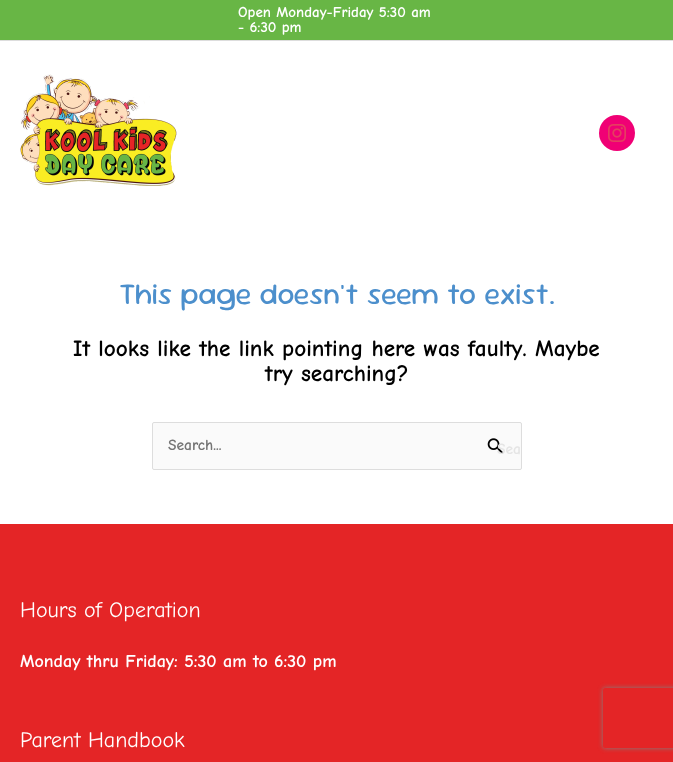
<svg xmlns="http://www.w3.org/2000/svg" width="673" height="762">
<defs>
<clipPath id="clip1"><path d="M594 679h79v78h-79zm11 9h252c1 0 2 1 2 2v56c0 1-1 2-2 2h-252c-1 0-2-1-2-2v-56c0-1 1-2 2-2z" clip-rule="evenodd"/></clipPath>
</defs>
<rect width="100%" height="100%" fill="#fff"/>
<rect width="673" height="40" fill="#68b645"/>
<rect y="40" width="673" height="1" fill="#ddd"/>
<text x="238" y="17" style="font-family:Comic Neue;font-size:15px;font-weight:bold;fill:#fff">Open Monday-Friday 5:30 am</text>
<text x="238" y="32" style="font-family:Comic Neue;font-size:15px;font-weight:bold;fill:#fff">- 6:30 pm</text>
<image x="20" y="74" width="157" height="112" href="media/1.png"/>
<circle cx="617" cy="133" r="18" fill="#f00075"/>
<image x="608" y="124" width="18" height="18" href="media/2.png"/>
<text x="119" y="304" style="font-family:Sour Gummy;font-size:30px;fill:#4c8fcc">This page doesn't seem to exist.</text>
<text x="73" y="356" style="font-family:Comic Neue;font-size:23.25px;font-weight:bold;fill:#000">It looks like the link pointing here was faulty. Maybe</text>
<text x="265" y="381" style="font-family:Comic Neue;font-size:23.25px;font-weight:bold;fill:#000">try searching?</text>
<rect x="152.5" y="422.5" width="369" height="47" rx="1.5" fill="#fafafa" stroke="#ddd"/>
<text x="168" y="450" style="font-family:Comic Neue;font-size:15.5px;font-weight:bold;fill:#757575">Search...</text>
<image x="487" y="438" width="17" height="16" href="media/3.png"/>
<text x="497" y="454" style="font-family:Comic Neue;font-size:15.5px;font-weight:bold;fill:#e5e5e5">Sea</text>
<rect y="524" width="673" height="238" fill="#e42526"/>
<text x="20" y="617" style="font-family:Comic Neue;font-size:22px;fill:#fff">Hours of Operation</text>
<text x="20" y="667" style="font-family:Comic Neue;font-size:18px;font-weight:bold;fill:#fff">Monday thru Friday: 5:30 am to 6:30 pm</text>
<text x="20" y="747" style="font-family:Comic Neue;font-size:22px;fill:#fff">Parent Handbook</text>
<g clip-path="url(#clip1)">
<rect x="603" y="688" width="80" height="60" rx="2" fill="#808080" filter="blur(2.5px)"/>
</g>
</svg>
